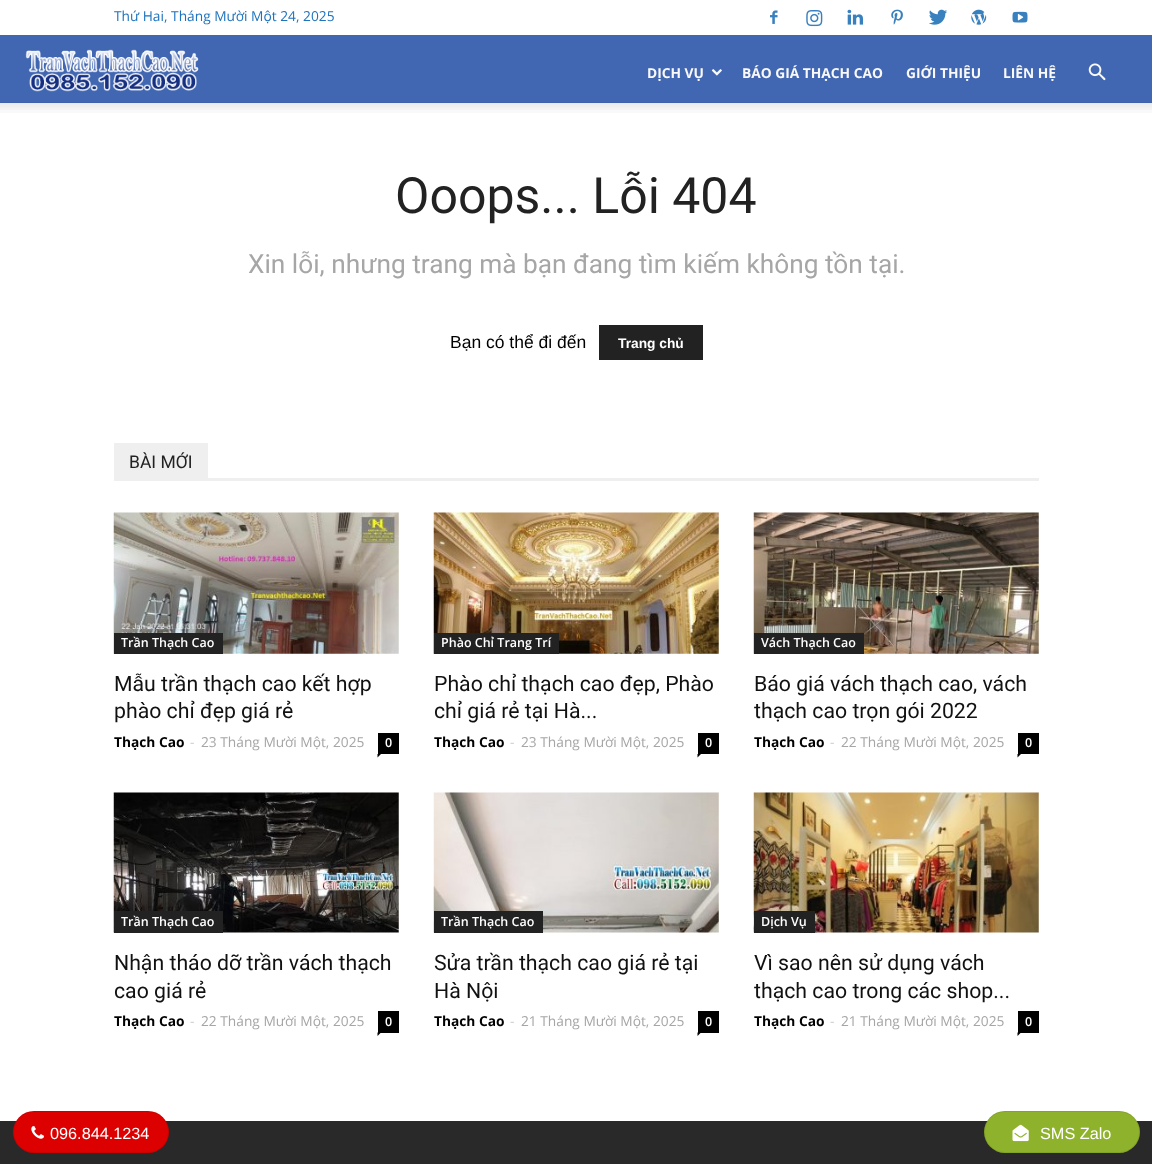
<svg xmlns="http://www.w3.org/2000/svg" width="1152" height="1164">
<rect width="100%" height="100%" fill="#fff"/>
<text x="114" y="21" style="font-family:Open Sans;font-size:13.75px;fill:#1e73be">Thứ Hai, Tháng Mười Một 24, 2025</text>
<image x="770" y="10" width="8" height="14" href="media/1.png"/>
<image x="806" y="10" width="17" height="17" href="media/2.png"/>
<image x="847" y="9" width="17" height="16" href="media/3.png"/>
<image x="891" y="9" width="12" height="16" href="media/4.png"/>
<image x="929" y="9" width="18" height="16" href="media/5.png"/>
<image x="971" y="9" width="16" height="16" href="media/6.png"/>
<image x="1012" y="11" width="16" height="12" href="media/7.png"/>
<rect y="35" width="1152" height="68" fill="#4267b2"/>
<image x="25" y="49" width="174" height="43" href="media/8.png"/>
<text x="647" y="78" style="font-family:Open Sans;font-size:13.75px;font-weight:bold;fill:#f9f9f9">DỊCH VỤ</text>
<image x="711" y="69" width="11" height="7" href="media/9.png"/>
<text x="742" y="78" style="font-family:Open Sans;font-size:13.75px;font-weight:bold;fill:#f9f9f9">BÁO GIÁ THẠCH CAO</text>
<text x="906" y="78" style="font-family:Open Sans;font-size:13.75px;font-weight:bold;fill:#f9f9f9">GIỚI THIỆU</text>
<text x="1003" y="78" style="font-family:Open Sans;font-size:13.75px;font-weight:bold;fill:#f9f9f9">LIÊN HỆ</text>
<image x="1088" y="63" width="18" height="18" href="media/10.png"/>
<image x="0" y="102" width="1152" height="11" href="media/11.png"/>
<text x="395" y="213" style="font-family:Roboto;font-size:50px;fill:#222">Ooops... Lỗi 404</text>
<text x="248" y="273" style="font-family:Roboto;font-size:26.25px;fill:#a6a6a6">Xin lỗi, nhưng trang mà bạn đang tìm kiếm không tồn tại.</text>
<text x="450" y="348" style="font-family:Liberation Sans;font-size:17.5px;fill:#000">Bạn có thể đi đến</text>
<rect x="599" y="325" width="104" height="35" fill="#222"/>
<text x="618" y="348" style="font-family:Liberation Sans;font-size:13.75px;font-weight:bold;fill:#fff">Trang chủ</text>
<rect x="114" y="478" width="925" height="3" fill="#efefef"/>
<rect x="114" y="443" width="94" height="35" fill="#efefef"/>
<text x="129" y="468" style="font-family:Roboto;font-size:17.5px;fill:#222">BÀI MỚI</text>
<image x="113" y="512" width="286" height="142" href="media/12.png"/>
<rect x="114" y="633" width="109" height="21" fill="#222"/>
<text x="121" y="647" style="font-family:Open Sans;font-size:12.5px;font-weight:600;fill:#fff">Trần Thạch Cao</text>
<text x="114" y="691" style="font-family:Roboto;font-size:21.25px;fill:#111">Mẫu trần thạch cao kết hợp</text>
<text x="114" y="718" style="font-family:Roboto;font-size:21.25px;fill:#111">phào chỉ đẹp giá rẻ</text>
<text x="114" y="747" style="font-family:Open Sans;font-size:13.75px;font-weight:bold;fill:#000">Thạch Cao</text>
<text x="190" y="747" style="font-family:Open Sans;font-size:13.75px;fill:#ccc">-</text>
<text x="201" y="747" style="font-family:Open Sans;font-size:13.75px;fill:#a6a6a6">23 Tháng Mười Một, 2025</text>
<rect x="378" y="733" width="21" height="21" fill="#000"/>
<text x="385" y="747" style="font-family:Open Sans;font-size:12.5px;font-weight:600;fill:#fff">0</text>
<path d="M377.5 754h3.5l-3.5 3.5z" fill="#000"/>
<image x="433" y="512" width="286" height="142" href="media/13.png"/>
<rect x="434" y="633" width="125" height="21" fill="#222"/>
<text x="441" y="647" style="font-family:Open Sans;font-size:12.5px;font-weight:600;fill:#fff">Phào Chỉ Trang Trí</text>
<text x="434" y="691" style="font-family:Roboto;font-size:21.25px;fill:#111">Phào chỉ thạch cao đẹp, Phào</text>
<text x="434" y="718" style="font-family:Roboto;font-size:21.25px;fill:#111">chỉ giá rẻ tại Hà...</text>
<text x="434" y="747" style="font-family:Open Sans;font-size:13.75px;font-weight:bold;fill:#000">Thạch Cao</text>
<text x="510" y="747" style="font-family:Open Sans;font-size:13.75px;fill:#ccc">-</text>
<text x="521" y="747" style="font-family:Open Sans;font-size:13.75px;fill:#a6a6a6">23 Tháng Mười Một, 2025</text>
<rect x="698" y="733" width="21" height="21" fill="#000"/>
<text x="705" y="747" style="font-family:Open Sans;font-size:12.5px;font-weight:600;fill:#fff">0</text>
<path d="M697.5 754h3.5l-3.5 3.5z" fill="#000"/>
<image x="753" y="512" width="286" height="142" href="media/14.png"/>
<rect x="754" y="633" width="110" height="21" fill="#222"/>
<text x="761" y="647" style="font-family:Open Sans;font-size:12.5px;font-weight:600;fill:#fff">Vách Thạch Cao</text>
<text x="754" y="691" style="font-family:Roboto;font-size:21.25px;fill:#111">Báo giá vách thạch cao, vách</text>
<text x="754" y="718" style="font-family:Roboto;font-size:21.25px;fill:#111">thạch cao trọn gói 2022</text>
<text x="754" y="747" style="font-family:Open Sans;font-size:13.75px;font-weight:bold;fill:#000">Thạch Cao</text>
<text x="830" y="747" style="font-family:Open Sans;font-size:13.75px;fill:#ccc">-</text>
<text x="841" y="747" style="font-family:Open Sans;font-size:13.75px;fill:#a6a6a6">22 Tháng Mười Một, 2025</text>
<rect x="1018" y="733" width="21" height="21" fill="#000"/>
<text x="1025" y="747" style="font-family:Open Sans;font-size:12.5px;font-weight:600;fill:#fff">0</text>
<path d="M1017.5 754h3.5l-3.5 3.5z" fill="#000"/>
<image x="113" y="792" width="286" height="141" href="media/15.png"/>
<rect x="114" y="911" width="109" height="22" fill="#222"/>
<text x="121" y="926" style="font-family:Open Sans;font-size:12.5px;font-weight:600;fill:#fff">Trần Thạch Cao</text>
<text x="114" y="970" style="font-family:Roboto;font-size:21.25px;fill:#111">Nhận tháo dỡ trần vách thạch</text>
<text x="114" y="998" style="font-family:Roboto;font-size:21.25px;fill:#111">cao giá rẻ</text>
<text x="114" y="1026" style="font-family:Open Sans;font-size:13.75px;font-weight:bold;fill:#000">Thạch Cao</text>
<text x="190" y="1026" style="font-family:Open Sans;font-size:13.75px;fill:#ccc">-</text>
<text x="201" y="1026" style="font-family:Open Sans;font-size:13.75px;fill:#a6a6a6">22 Tháng Mười Một, 2025</text>
<rect x="378" y="1011" width="21" height="22" fill="#000"/>
<text x="385" y="1026" style="font-family:Open Sans;font-size:12.5px;font-weight:600;fill:#fff">0</text>
<path d="M377.5 1032.5h3.5l-3.5 3.5z" fill="#000"/>
<image x="433" y="792" width="286" height="141" href="media/16.png"/>
<rect x="434" y="911" width="109" height="22" fill="#222"/>
<text x="441" y="926" style="font-family:Open Sans;font-size:12.5px;font-weight:600;fill:#fff">Trần Thạch Cao</text>
<text x="434" y="970" style="font-family:Roboto;font-size:21.25px;fill:#111">Sửa trần thạch cao giá rẻ tại</text>
<text x="434" y="998" style="font-family:Roboto;font-size:21.25px;fill:#111">Hà Nội</text>
<text x="434" y="1026" style="font-family:Open Sans;font-size:13.75px;font-weight:bold;fill:#000">Thạch Cao</text>
<text x="510" y="1026" style="font-family:Open Sans;font-size:13.75px;fill:#ccc">-</text>
<text x="521" y="1026" style="font-family:Open Sans;font-size:13.75px;fill:#a6a6a6">21 Tháng Mười Một, 2025</text>
<rect x="698" y="1011" width="21" height="22" fill="#000"/>
<text x="705" y="1026" style="font-family:Open Sans;font-size:12.5px;font-weight:600;fill:#fff">0</text>
<path d="M697.5 1032.5h3.5l-3.5 3.5z" fill="#000"/>
<image x="753" y="792" width="286" height="141" href="media/17.png"/>
<rect x="754" y="911" width="61" height="22" fill="#222"/>
<text x="761" y="926" style="font-family:Open Sans;font-size:12.5px;font-weight:600;fill:#fff">Dịch Vụ</text>
<text x="754" y="970" style="font-family:Roboto;font-size:21.25px;fill:#111">Vì sao nên sử dụng vách</text>
<text x="754" y="998" style="font-family:Roboto;font-size:21.25px;fill:#111">thạch cao trong các shop...</text>
<text x="754" y="1026" style="font-family:Open Sans;font-size:13.75px;font-weight:bold;fill:#000">Thạch Cao</text>
<text x="830" y="1026" style="font-family:Open Sans;font-size:13.75px;fill:#ccc">-</text>
<text x="841" y="1026" style="font-family:Open Sans;font-size:13.75px;fill:#a6a6a6">21 Tháng Mười Một, 2025</text>
<rect x="1018" y="1011" width="21" height="22" fill="#000"/>
<text x="1025" y="1026" style="font-family:Open Sans;font-size:12.5px;font-weight:600;fill:#fff">0</text>
<path d="M1017.5 1032.5h3.5l-3.5 3.5z" fill="#000"/>
<rect y="1121" width="1152" height="43" fill="#292929"/>
<rect x="13" y="1111" width="156" height="42" rx="21" fill="#d00"/>
<rect x="13.5" y="1111.5" width="155" height="41" rx="20.5" fill="none" stroke="#00000014"/>
<image x="31" y="1126" width="13" height="13" href="media/18.png"/>
<text x="50" y="1139" style="font-family:Liberation Sans;font-size:16.25px;fill:#fff">096.844.1234</text>
<rect x="984" y="1111" width="156" height="42" rx="21" fill="#8eb22b"/>
<rect x="984.5" y="1111.5" width="155" height="41" rx="20.5" fill="none" stroke="#00000014"/>
<image x="1012" y="1124" width="17" height="18" href="media/19.png"/>
<text x="1040" y="1139" style="font-family:Liberation Sans;font-size:16.25px;fill:#fff">SMS Zalo</text>
</svg>
